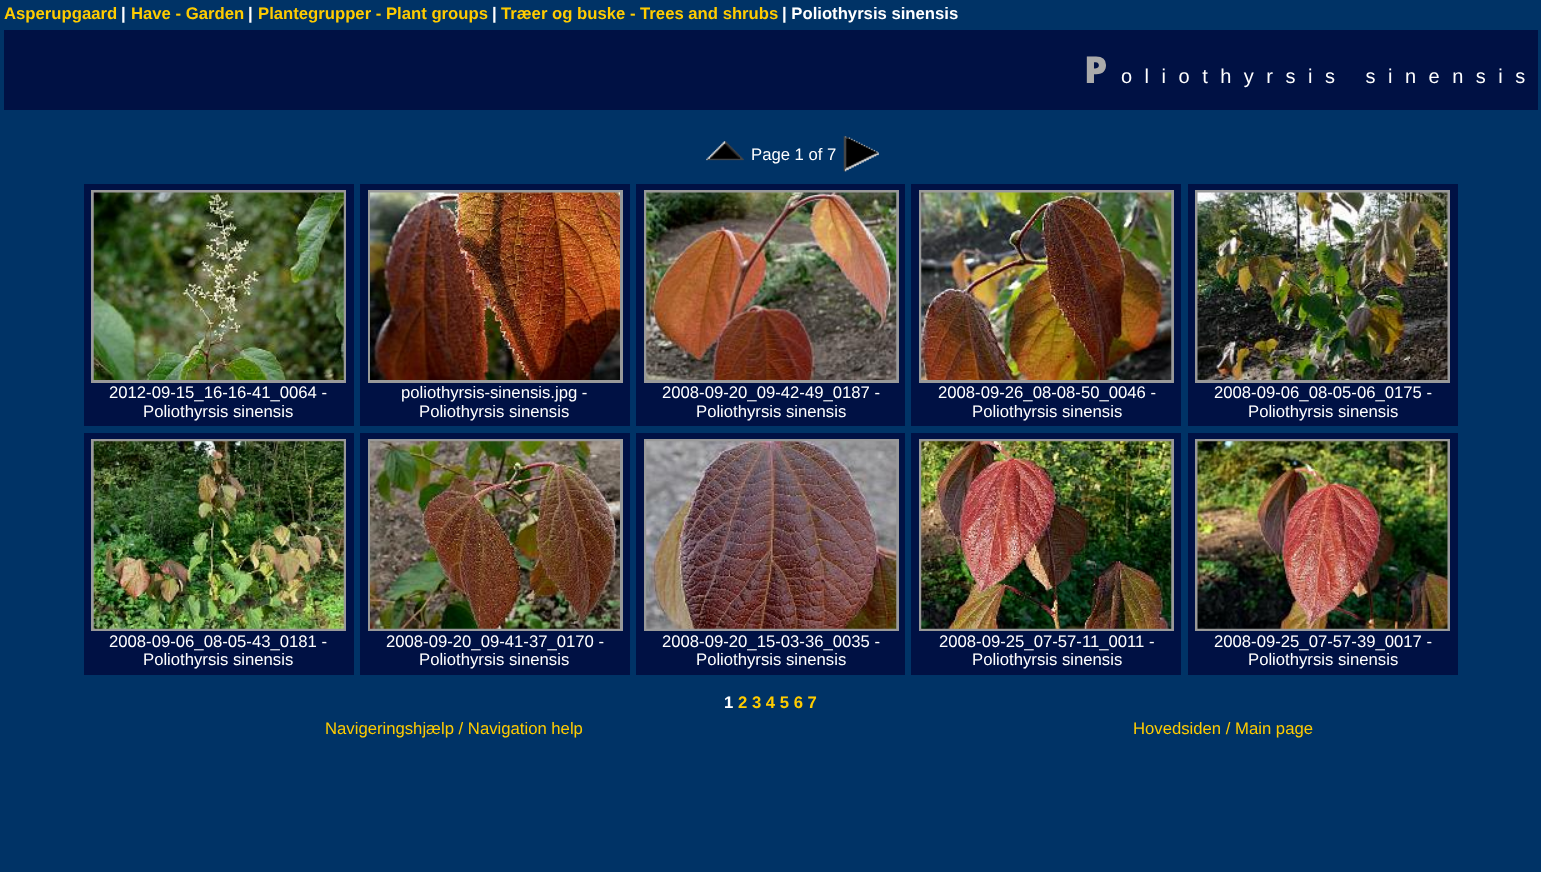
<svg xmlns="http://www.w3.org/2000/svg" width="1541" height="872">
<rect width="100%" height="100%" fill="#036"/>
<text x="4" y="19" style="font-family:Liberation Sans;font-size:16.7px;font-weight:bold;fill:#fc0">Asperupgaard</text>
<text x="121" y="19" style="font-family:Liberation Sans;font-size:16.7px;font-weight:bold;fill:#fff">|</text>
<text x="131" y="19" style="font-family:Liberation Sans;font-size:16.7px;font-weight:bold;fill:#fc0">Have - Garden</text>
<text x="248" y="19" style="font-family:Liberation Sans;font-size:16.7px;font-weight:bold;fill:#fff">|</text>
<text x="258" y="19" style="font-family:Liberation Sans;font-size:16.7px;font-weight:bold;fill:#fc0">Plantegrupper - Plant groups</text>
<text x="492" y="19" style="font-family:Liberation Sans;font-size:16.7px;font-weight:bold;fill:#fff">|</text>
<text x="501" y="19" style="font-family:Liberation Sans;font-size:16.7px;font-weight:bold;fill:#fc0">Træer og buske - Trees and shrubs</text>
<text x="782" y="19" style="font-family:Liberation Sans;font-size:16.7px;font-weight:bold;fill:#fff">| Poliothyrsis sinensis</text>
<rect x="4" y="30" width="1534" height="80" fill="#014"/>
<text x="1084" y="83" style="font-family:Noto Sans;font-size:37px;font-weight:900;letter-spacing:12.5px;fill:#aaa">P</text>
<text x="1121" y="83" style="font-family:Liberation Sans;font-size:20px;letter-spacing:12.5px;fill:#fff">oliothyrsis sinensis</text>
<image x="706" y="141" width="38" height="20" href="media/1.png"/>
<text x="751" y="160" style="font-family:Liberation Sans;font-size:16.7px;fill:#fff">Page 1 of 7</text>
<image x="843" y="136" width="36" height="36" href="media/2.png"/>
<rect x="84" y="184" width="270" height="242" fill="#014"/>
<rect x="92.5" y="191.5" width="252" height="190" fill="none" stroke="#999" stroke-width="3"/>
<image x="93" y="192" width="251" height="188" href="media/3.png"/>
<text x="109" y="398" style="font-family:Liberation Sans;font-size:16.7px;fill:#fff">2012-09-15_16-16-41_0064 -</text>
<text x="143" y="417" style="font-family:Liberation Sans;font-size:16.7px;fill:#fff">Poliothyrsis sinensis</text>
<rect x="360" y="184" width="270" height="242" fill="#014"/>
<rect x="369.5" y="191.5" width="252" height="190" fill="none" stroke="#999" stroke-width="3"/>
<image x="370" y="192" width="250" height="188" href="media/4.png"/>
<text x="401" y="398" style="font-family:Liberation Sans;font-size:16.7px;fill:#fff">poliothyrsis-sinensis.jpg -</text>
<text x="419" y="417" style="font-family:Liberation Sans;font-size:16.7px;fill:#fff">Poliothyrsis sinensis</text>
<rect x="636" y="184" width="269" height="242" fill="#014"/>
<rect x="645.5" y="191.5" width="252" height="190" fill="none" stroke="#999" stroke-width="3"/>
<image x="646" y="192" width="251" height="188" href="media/5.png"/>
<text x="662" y="398" style="font-family:Liberation Sans;font-size:16.7px;fill:#fff">2008-09-20_09-42-49_0187 -</text>
<text x="696" y="417" style="font-family:Liberation Sans;font-size:16.7px;fill:#fff">Poliothyrsis sinensis</text>
<rect x="911" y="184" width="270" height="242" fill="#014"/>
<rect x="920.5" y="191.5" width="252" height="190" fill="none" stroke="#999" stroke-width="3"/>
<image x="921" y="192" width="251" height="188" href="media/6.png"/>
<text x="938" y="398" style="font-family:Liberation Sans;font-size:16.7px;fill:#fff">2008-09-26_08-08-50_0046 -</text>
<text x="972" y="417" style="font-family:Liberation Sans;font-size:16.7px;fill:#fff">Poliothyrsis sinensis</text>
<rect x="1188" y="184" width="270" height="242" fill="#014"/>
<rect x="1196.5" y="191.5" width="252" height="190" fill="none" stroke="#999" stroke-width="3"/>
<image x="1197" y="192" width="251" height="188" href="media/7.png"/>
<text x="1214" y="398" style="font-family:Liberation Sans;font-size:16.7px;fill:#fff">2008-09-06_08-05-06_0175 -</text>
<text x="1248" y="417" style="font-family:Liberation Sans;font-size:16.7px;fill:#fff">Poliothyrsis sinensis</text>
<rect x="84" y="433" width="270" height="242" fill="#014"/>
<rect x="92.5" y="440.5" width="252" height="189" fill="none" stroke="#999" stroke-width="3"/>
<image x="93" y="441" width="251" height="188" href="media/8.png"/>
<text x="109" y="647" style="font-family:Liberation Sans;font-size:16.7px;fill:#fff">2008-09-06_08-05-43_0181 -</text>
<text x="143" y="665" style="font-family:Liberation Sans;font-size:16.7px;fill:#fff">Poliothyrsis sinensis</text>
<rect x="360" y="433" width="270" height="242" fill="#014"/>
<rect x="369.5" y="440.5" width="252" height="189" fill="none" stroke="#999" stroke-width="3"/>
<image x="370" y="441" width="250" height="188" href="media/9.png"/>
<text x="386" y="647" style="font-family:Liberation Sans;font-size:16.7px;fill:#fff">2008-09-20_09-41-37_0170 -</text>
<text x="419" y="665" style="font-family:Liberation Sans;font-size:16.7px;fill:#fff">Poliothyrsis sinensis</text>
<rect x="636" y="433" width="269" height="242" fill="#014"/>
<rect x="645.5" y="440.5" width="252" height="189" fill="none" stroke="#999" stroke-width="3"/>
<image x="646" y="441" width="251" height="188" href="media/10.png"/>
<text x="662" y="647" style="font-family:Liberation Sans;font-size:16.7px;fill:#fff">2008-09-20_15-03-36_0035 -</text>
<text x="696" y="665" style="font-family:Liberation Sans;font-size:16.7px;fill:#fff">Poliothyrsis sinensis</text>
<rect x="911" y="433" width="270" height="242" fill="#014"/>
<rect x="920.5" y="440.5" width="252" height="189" fill="none" stroke="#999" stroke-width="3"/>
<image x="921" y="441" width="251" height="188" href="media/11.png"/>
<text x="939" y="647" style="font-family:Liberation Sans;font-size:16.7px;fill:#fff">2008-09-25_07-57-11_0011 -</text>
<text x="972" y="665" style="font-family:Liberation Sans;font-size:16.7px;fill:#fff">Poliothyrsis sinensis</text>
<rect x="1188" y="433" width="270" height="242" fill="#014"/>
<rect x="1196.5" y="440.5" width="252" height="189" fill="none" stroke="#999" stroke-width="3"/>
<image x="1197" y="441" width="251" height="188" href="media/12.png"/>
<text x="1214" y="647" style="font-family:Liberation Sans;font-size:16.7px;fill:#fff">2008-09-25_07-57-39_0017 -</text>
<text x="1248" y="665" style="font-family:Liberation Sans;font-size:16.7px;fill:#fff">Poliothyrsis sinensis</text>
<text x="724" y="708" style="font-family:Liberation Sans;font-size:16.7px;font-weight:bold;fill:#fff">1</text>
<text x="738" y="708" style="font-family:Liberation Sans;font-size:16.7px;font-weight:bold;fill:#fc0">2 3 4 5 6 7</text>
<text x="325" y="734" style="font-family:Liberation Sans;font-size:16.7px;fill:#fc0">Navigeringshjælp / Navigation help</text>
<text x="1133" y="734" style="font-family:Liberation Sans;font-size:16.7px;fill:#fc0">Hovedsiden / Main page</text>
</svg>
